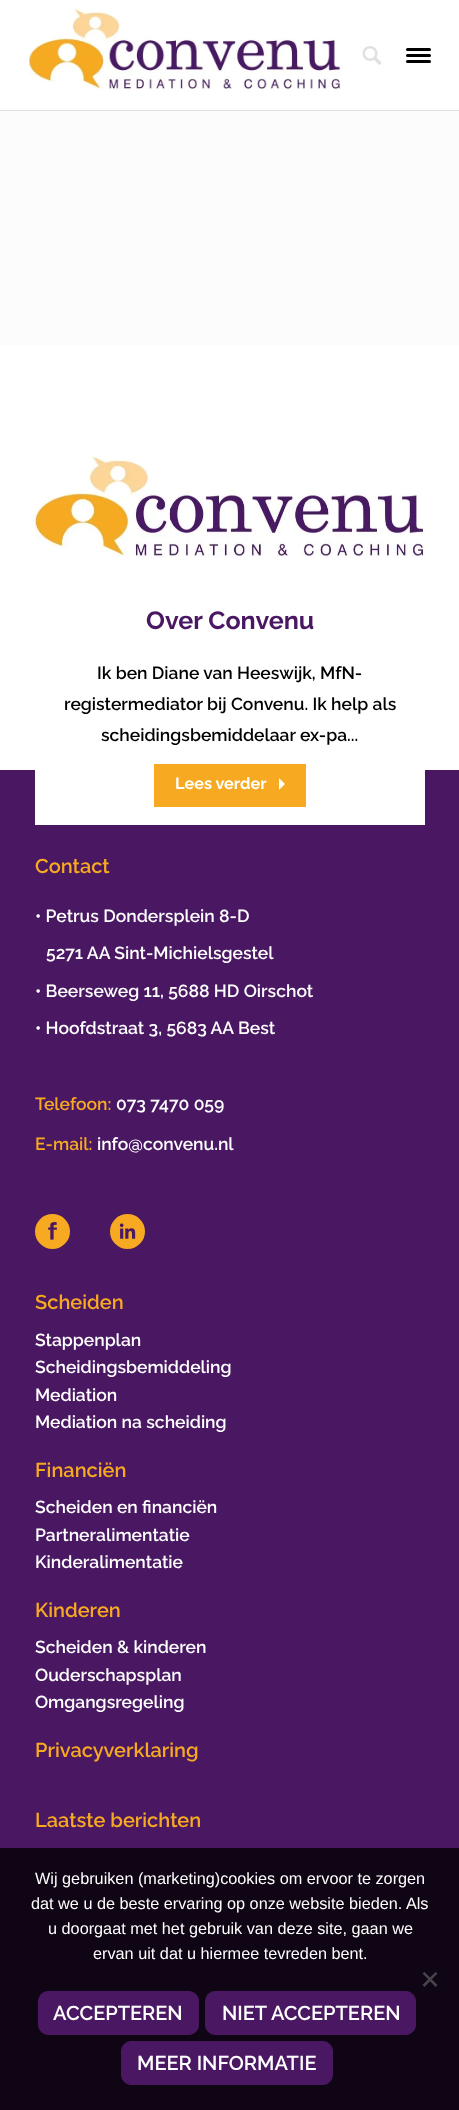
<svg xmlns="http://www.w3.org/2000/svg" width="459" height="2110">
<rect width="100%" height="100%" fill="#fff"/>
<rect y="110" width="459" height="1" fill="#dfe1e1"/>
<image x="28" y="7" width="313" height="83" href="media/1.png"/>
<image x="362" y="46" width="20" height="19" href="media/2.png"/>
<rect x="406" y="54" width="25" height="3" rx="1.5" fill="#000"/>
<rect x="406" y="48" width="25" height="3" rx="1.5" fill="#000"/>
<rect x="406" y="60" width="25" height="3" rx="1.5" fill="#000"/>
<rect y="111" width="459" height="234" fill="#fcfcfc"/>
<rect y="770" width="459" height="1078" fill="#4a1863"/>
<rect x="35" y="770" width="390" height="55" fill="#fff"/>
<image x="35" y="454" width="390" height="104" href="media/3.png"/>
<text x="146" y="629" style="font-family:'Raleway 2';font-size:25px;font-weight:100;fill:#4a1863">Over Convenu</text>
<text x="97" y="679" style="font-family:Raleway;font-size:17.5px;font-weight:100;fill:#000">Ik ben Diane van Heeswijk, MfN-</text>
<text x="64" y="710" style="font-family:Raleway;font-size:17.5px;font-weight:100;fill:#000">registermediator bij Convenu. Ik help als</text>
<text x="101" y="741" style="font-family:Raleway;font-size:17.5px;font-weight:100;fill:#000">scheidingsbemiddelaar ex-pa...</text>
<rect x="154" y="764" width="152" height="43" fill="#f7aa21"/>
<text x="175" y="789" style="font-family:'Raleway 2';font-size:16.25px;font-weight:100;fill:#fff">Lees verder</text>
<path d="M279 778l6 6l-6 6z" fill="#fff"/>
<text x="35" y="873" style="font-family:Raleway;font-size:20px;font-weight:100;fill:#f7aa21">Contact</text>
<text x="35" y="922" style="font-family:Raleway;font-size:17.5px;font-weight:100;fill:#fff">• Petrus Dondersplein 8-D</text>
<text x="46" y="959" style="font-family:Raleway;font-size:17.5px;font-weight:100;fill:#fff">5271 AA Sint-Michielsgestel</text>
<text x="35" y="997" style="font-family:Raleway;font-size:17.5px;font-weight:100;fill:#fff">• Beerseweg 11, 5688 HD Oirschot</text>
<text x="35" y="1034" style="font-family:Raleway;font-size:17.5px;font-weight:100;fill:#fff">• Hoofdstraat 3, 5683 AA Best</text>
<text x="35" y="1110" style="font-family:Raleway;font-size:17.5px;font-weight:100;fill:#f7aa21">Telefoon:</text>
<text x="116" y="1110" style="font-family:Raleway;font-size:17.5px;font-weight:100;fill:#fff">073 7470 059</text>
<text x="35" y="1150" style="font-family:Raleway;font-size:17.5px;font-weight:100;fill:#f7aa21">E-mail:</text>
<text x="97" y="1150" style="font-family:Raleway;font-size:17.5px;font-weight:100;fill:#fff">info@convenu.nl</text>
<circle cx="52.5" cy="1231.5" r="17.5" fill="#f7aa21"/>
<image x="48" y="1222" width="9" height="18" href="media/4.png"/>
<circle cx="127.5" cy="1231.5" r="17.5" fill="#f7aa21"/>
<image x="119" y="1223" width="17" height="16" href="media/5.png"/>
<text x="35" y="1309" style="font-family:Raleway;font-size:20px;font-weight:100;fill:#f7aa21">Scheiden</text>
<text x="35" y="1346" style="font-family:Raleway;font-size:17.5px;font-weight:100;fill:#fff">Stappenplan</text>
<text x="35" y="1373" style="font-family:Raleway;font-size:17.5px;font-weight:100;fill:#fff">Scheidingsbemiddeling</text>
<text x="35" y="1401" style="font-family:Raleway;font-size:17.5px;font-weight:100;fill:#fff">Mediation</text>
<text x="35" y="1428" style="font-family:Raleway;font-size:17.5px;font-weight:100;fill:#fff">Mediation na scheiding</text>
<text x="35" y="1477" style="font-family:Raleway;font-size:20px;font-weight:100;fill:#f7aa21">Financiën</text>
<text x="35" y="1513" style="font-family:Raleway;font-size:17.5px;font-weight:100;fill:#fff">Scheiden en financiën</text>
<text x="35" y="1541" style="font-family:Raleway;font-size:17.5px;font-weight:100;fill:#fff">Partneralimentatie</text>
<text x="35" y="1568" style="font-family:Raleway;font-size:17.5px;font-weight:100;fill:#fff">Kinderalimentatie</text>
<text x="35" y="1617" style="font-family:Raleway;font-size:20px;font-weight:100;fill:#f7aa21">Kinderen</text>
<text x="35" y="1653" style="font-family:Raleway;font-size:17.5px;font-weight:100;fill:#fff">Scheiden &amp; kinderen</text>
<text x="35" y="1681" style="font-family:Raleway;font-size:17.5px;font-weight:100;fill:#fff">Ouderschapsplan</text>
<text x="35" y="1708" style="font-family:Raleway;font-size:17.5px;font-weight:100;fill:#fff">Omgangsregeling</text>
<text x="35" y="1757" style="font-family:Raleway;font-size:20px;font-weight:100;fill:#f7aa21">Privacyverklaring</text>
<text x="35" y="1827" style="font-family:Raleway;font-size:20px;font-weight:100;fill:#f7aa21">Laatste berichten</text>
<rect y="1848" width="459" height="262" fill="#0f0514"/>
<text x="35" y="1884" style="font-family:Liberation Sans;font-size:16.25px;fill:#fff">Wij gebruiken (marketing)cookies om ervoor te zorgen</text>
<text x="31" y="1909" style="font-family:Liberation Sans;font-size:16.25px;fill:#fff">dat we u de beste ervaring op onze website bieden. Als</text>
<text x="48" y="1934" style="font-family:Liberation Sans;font-size:16.25px;fill:#fff">u doorgaat met het gebruik van deze site, gaan we</text>
<text x="93" y="1959" style="font-family:Liberation Sans;font-size:16.25px;fill:#fff">ervan uit dat u hiermee tevreden bent.</text>
<path d="M435.5 1972l2 1.5l-13 13.5l-2-2z" fill="#48434a"/>
<path d="M422.5 1973.5l2-1.5l13 13l-2 2z" fill="#48434a"/>
<rect x="38.5" y="1991.5" width="160" height="43" rx="9.5" fill="#4a1863" stroke="#4a1863"/>
<text x="53" y="2020" style="font-family:Raleway;font-size:20px;font-weight:100;fill:#fff">ACCEPTEREN</text>
<rect x="205.5" y="1991.5" width="210" height="43" rx="9.5" fill="#4a1863" stroke="#4a1863"/>
<text x="222" y="2020" style="font-family:Raleway;font-size:20px;font-weight:100;fill:#fff">NIET ACCEPTEREN</text>
<rect x="121.5" y="2041.5" width="211" height="43" rx="9.5" fill="#4a1863" stroke="#4a1863"/>
<text x="137" y="2070" style="font-family:Raleway;font-size:20px;font-weight:100;fill:#fff">MEER INFORMATIE</text>
</svg>
